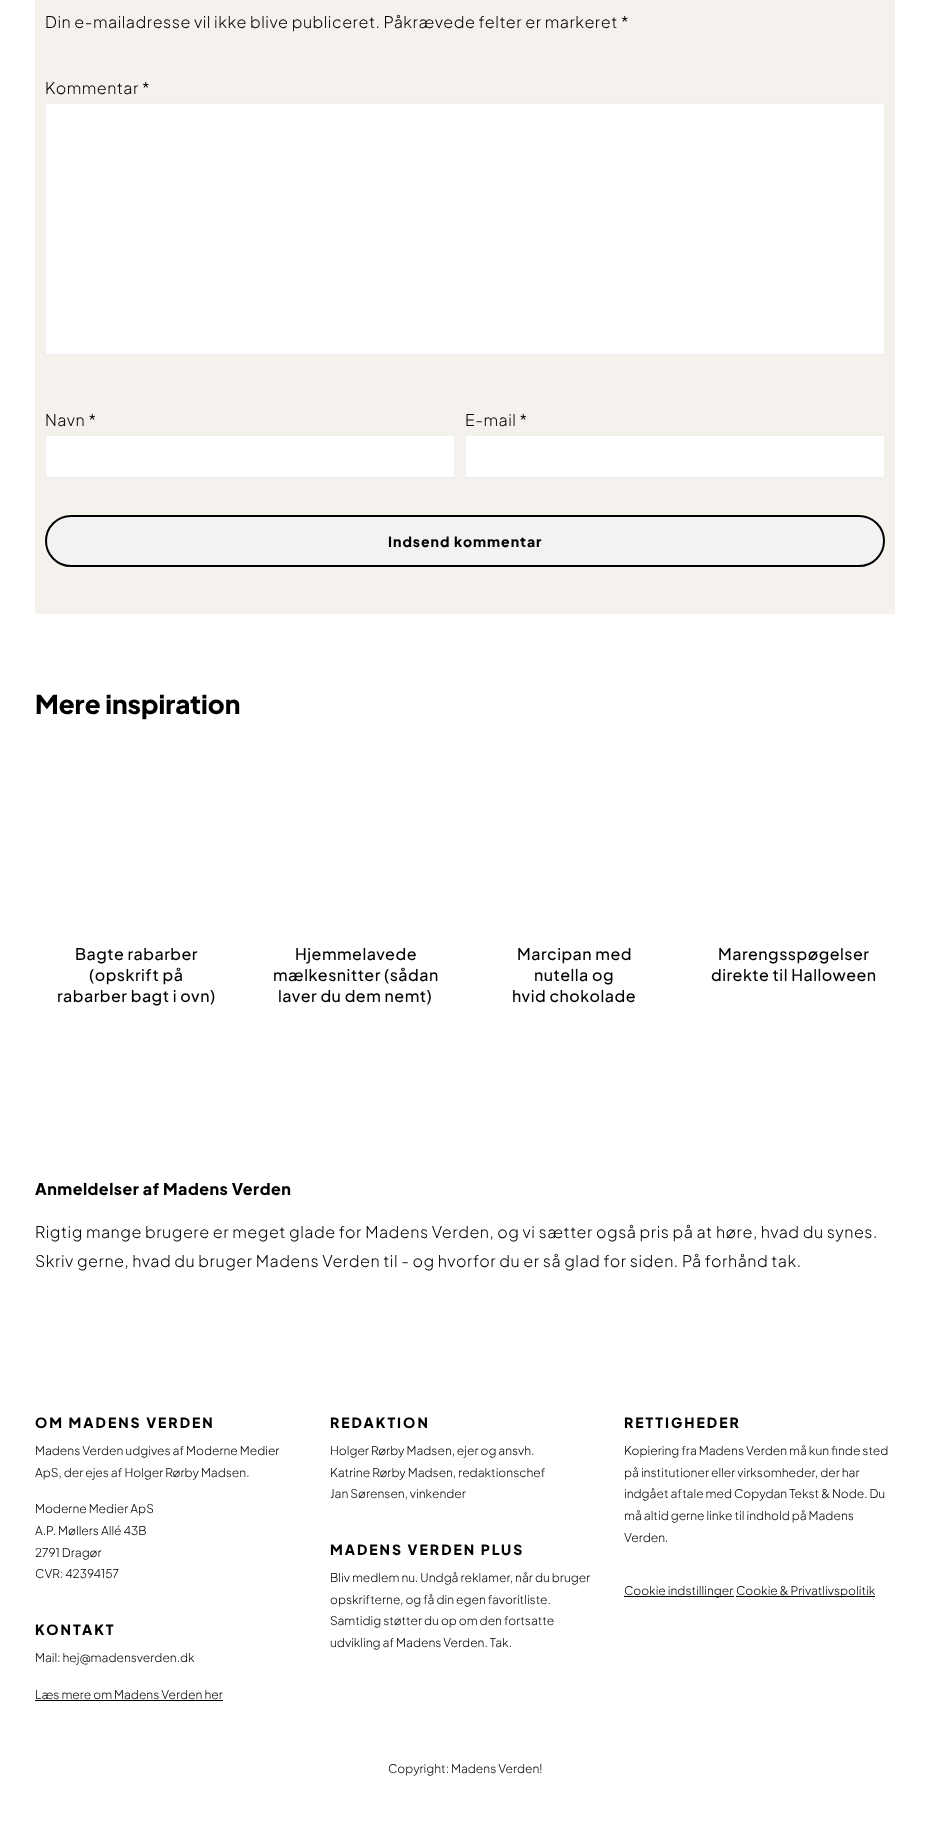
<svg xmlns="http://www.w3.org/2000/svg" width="930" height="1835">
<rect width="100%" height="100%" fill="#fff"/>
<rect x="35" width="860" height="614" fill="#f5f1ec"/>
<text x="45" y="28" style="font-family:Plus Jakarta Sans;font-size:16px;font-weight:300;letter-spacing:0.5px;fill:#000">Din e-mailadresse vil ikke blive publiceret. Påkrævede felter er markeret *</text>
<text x="45" y="94" style="font-family:Plus Jakarta Sans;font-size:16px;font-weight:300;letter-spacing:0.5px;fill:#000">Kommentar *</text>
<rect x="45.5" y="103.5" width="839" height="251" fill="#fff" stroke="#eee"/>
<text x="45" y="426" style="font-family:Plus Jakarta Sans;font-size:16px;font-weight:300;letter-spacing:0.5px;fill:#000">Navn *</text>
<rect x="45.5" y="435.5" width="409" height="42" fill="#fff" stroke="#eee"/>
<text x="465" y="426" style="font-family:Plus Jakarta Sans;font-size:16px;font-weight:300;letter-spacing:0.5px;fill:#000">E-mail *</text>
<rect x="465.5" y="435.5" width="419" height="42" fill="#fff" stroke="#eee"/>
<rect x="46" y="516" width="838" height="50" rx="25" fill="#f2f2f2" stroke="#000" stroke-width="2"/>
<text x="388" y="547" style="font-family:Plus Jakarta Sans;font-size:14px;font-weight:800;letter-spacing:1px;fill:#000">Indsend kommentar</text>
<text x="35" y="714" style="font-family:Plus Jakarta Sans;font-size:26px;font-weight:800;fill:#000">Mere inspiration</text>
<text x="75" y="960" style="font-family:Plus Jakarta Sans;font-size:16px;font-weight:500;letter-spacing:0.5px;fill:#000">Bagte rabarber</text>
<text x="89" y="981" style="font-family:Plus Jakarta Sans;font-size:16px;font-weight:500;letter-spacing:0.5px;fill:#000">(opskrift på</text>
<text x="57" y="1002" style="font-family:Plus Jakarta Sans;font-size:16px;font-weight:500;letter-spacing:0.5px;fill:#000">rabarber bagt i ovn)</text>
<text x="295" y="960" style="font-family:Plus Jakarta Sans;font-size:16px;font-weight:500;letter-spacing:0.5px;fill:#000">Hjemmelavede</text>
<text x="273" y="981" style="font-family:Plus Jakarta Sans;font-size:16px;font-weight:500;letter-spacing:0.5px;fill:#000">mælkesnitter (sådan</text>
<text x="278" y="1002" style="font-family:Plus Jakarta Sans;font-size:16px;font-weight:500;letter-spacing:0.5px;fill:#000">laver du dem nemt)</text>
<text x="517" y="960" style="font-family:Plus Jakarta Sans;font-size:16px;font-weight:500;letter-spacing:0.5px;fill:#000">Marcipan med</text>
<text x="534" y="981" style="font-family:Plus Jakarta Sans;font-size:16px;font-weight:500;letter-spacing:0.5px;fill:#000">nutella og</text>
<text x="512" y="1002" style="font-family:Plus Jakarta Sans;font-size:16px;font-weight:500;letter-spacing:0.5px;fill:#000">hvid chokolade</text>
<text x="718" y="960" style="font-family:Plus Jakarta Sans;font-size:16px;font-weight:500;letter-spacing:0.5px;fill:#000">Marengsspøgelser</text>
<text x="711" y="981" style="font-family:Plus Jakarta Sans;font-size:16px;font-weight:500;letter-spacing:0.5px;fill:#000">direkte til Halloween</text>
<text x="35" y="1195" style="font-family:Plus Jakarta Sans;font-size:16px;font-weight:800;letter-spacing:0.5px;fill:#000">Anmeldelser af Madens Verden</text>
<text x="35" y="1238" style="font-family:Plus Jakarta Sans;font-size:16px;font-weight:300;letter-spacing:0.5px;fill:#000">Rigtig mange brugere er meget glade for Madens Verden, og vi sætter også pris på at høre, hvad du synes.</text>
<text x="35" y="1267" style="font-family:Plus Jakarta Sans;font-size:16px;font-weight:300;letter-spacing:0.5px;fill:#000">Skriv gerne, hvad du bruger Madens Verden til - og hvorfor du er så glad for siden. På forhånd tak.</text>
<text x="35" y="1428" style="font-family:Plus Jakarta Sans;font-size:14px;font-weight:800;letter-spacing:2px;fill:#000">OM MADENS VERDEN</text>
<text x="35" y="1455" style="font-family:Plus Jakarta Sans;font-size:12px;font-weight:300;fill:#000">Madens Verden udgives af Moderne Medier</text>
<text x="35" y="1477" style="font-family:Plus Jakarta Sans;font-size:12px;font-weight:300;fill:#000">ApS, der ejes af Holger Rørby Madsen.</text>
<text x="35" y="1513" style="font-family:Plus Jakarta Sans;font-size:12px;font-weight:300;fill:#000">Moderne Medier ApS</text>
<text x="35" y="1535" style="font-family:Plus Jakarta Sans;font-size:12px;font-weight:300;fill:#000">A.P. Møllers Allé 43B</text>
<text x="35" y="1557" style="font-family:Plus Jakarta Sans;font-size:12px;font-weight:300;fill:#000">2791 Dragør</text>
<text x="35" y="1578" style="font-family:Plus Jakarta Sans;font-size:12px;font-weight:300;fill:#000">CVR: 42394157</text>
<text x="35" y="1635" style="font-family:Plus Jakarta Sans;font-size:14px;font-weight:800;letter-spacing:2px;fill:#000">KONTAKT</text>
<text x="35" y="1662" style="font-family:Plus Jakarta Sans;font-size:12px;font-weight:300;fill:#000">Mail: hej@madensverden.dk</text>
<text x="35" y="1699" style="font-family:Plus Jakarta Sans;font-size:12px;font-weight:300;fill:#000">Læs mere om Madens Verden her</text>
<rect x="35" y="1700" width="188" height="1" fill="#000"/>
<text x="330" y="1428" style="font-family:Plus Jakarta Sans;font-size:14px;font-weight:800;letter-spacing:2px;fill:#000">REDAKTION</text>
<text x="330" y="1455" style="font-family:Plus Jakarta Sans;font-size:12px;font-weight:300;fill:#000">Holger Rørby Madsen, ejer og ansvh.</text>
<text x="330" y="1477" style="font-family:Plus Jakarta Sans;font-size:12px;font-weight:300;fill:#000">Katrine Rørby Madsen, redaktionschef</text>
<text x="330" y="1498" style="font-family:Plus Jakarta Sans;font-size:12px;font-weight:300;fill:#000">Jan Sørensen, vinkender</text>
<text x="330" y="1555" style="font-family:Plus Jakarta Sans;font-size:14px;font-weight:800;letter-spacing:2px;fill:#000">MADENS VERDEN PLUS</text>
<text x="330" y="1582" style="font-family:Plus Jakarta Sans;font-size:12px;font-weight:300;fill:#000">Bliv medlem nu. Undgå reklamer, når du bruger</text>
<text x="330" y="1604" style="font-family:Plus Jakarta Sans;font-size:12px;font-weight:300;fill:#000">opskrifterne, og få din egen favoritliste.</text>
<text x="330" y="1625" style="font-family:Plus Jakarta Sans;font-size:12px;font-weight:300;fill:#000">Samtidig støtter du op om den fortsatte</text>
<text x="330" y="1647" style="font-family:Plus Jakarta Sans;font-size:12px;font-weight:300;fill:#000">udvikling af Madens Verden. Tak.</text>
<text x="624" y="1428" style="font-family:Plus Jakarta Sans;font-size:14px;font-weight:800;letter-spacing:2px;fill:#000">RETTIGHEDER</text>
<text x="624" y="1455" style="font-family:Plus Jakarta Sans;font-size:12px;font-weight:300;fill:#000">Kopiering fra Madens Verden må kun finde sted</text>
<text x="624" y="1477" style="font-family:Plus Jakarta Sans;font-size:12px;font-weight:300;fill:#000">på institutioner eller virksomheder, der har</text>
<text x="624" y="1498" style="font-family:Plus Jakarta Sans;font-size:12px;font-weight:300;fill:#000">indgået aftale med Copydan Tekst &amp; Node. Du</text>
<text x="624" y="1520" style="font-family:Plus Jakarta Sans;font-size:12px;font-weight:300;fill:#000">må altid gerne linke til indhold på Madens</text>
<text x="624" y="1542" style="font-family:Plus Jakarta Sans;font-size:12px;font-weight:300;fill:#000">Verden.</text>
<rect x="624" y="1596" width="110" height="1" fill="#000"/>
<text x="624" y="1595" style="font-family:Plus Jakarta Sans;font-size:12px;font-weight:300;fill:#000">Cookie indstillinger</text>
<rect x="736" y="1596" width="139" height="1" fill="#000"/>
<text x="736" y="1595" style="font-family:Plus Jakarta Sans;font-size:12px;font-weight:300;fill:#000">Cookie &amp; Privatlivspolitik</text>
<text x="388" y="1773" style="font-family:Plus Jakarta Sans;font-size:12px;font-weight:300;fill:#000">Copyright: Madens Verden!</text>
</svg>
